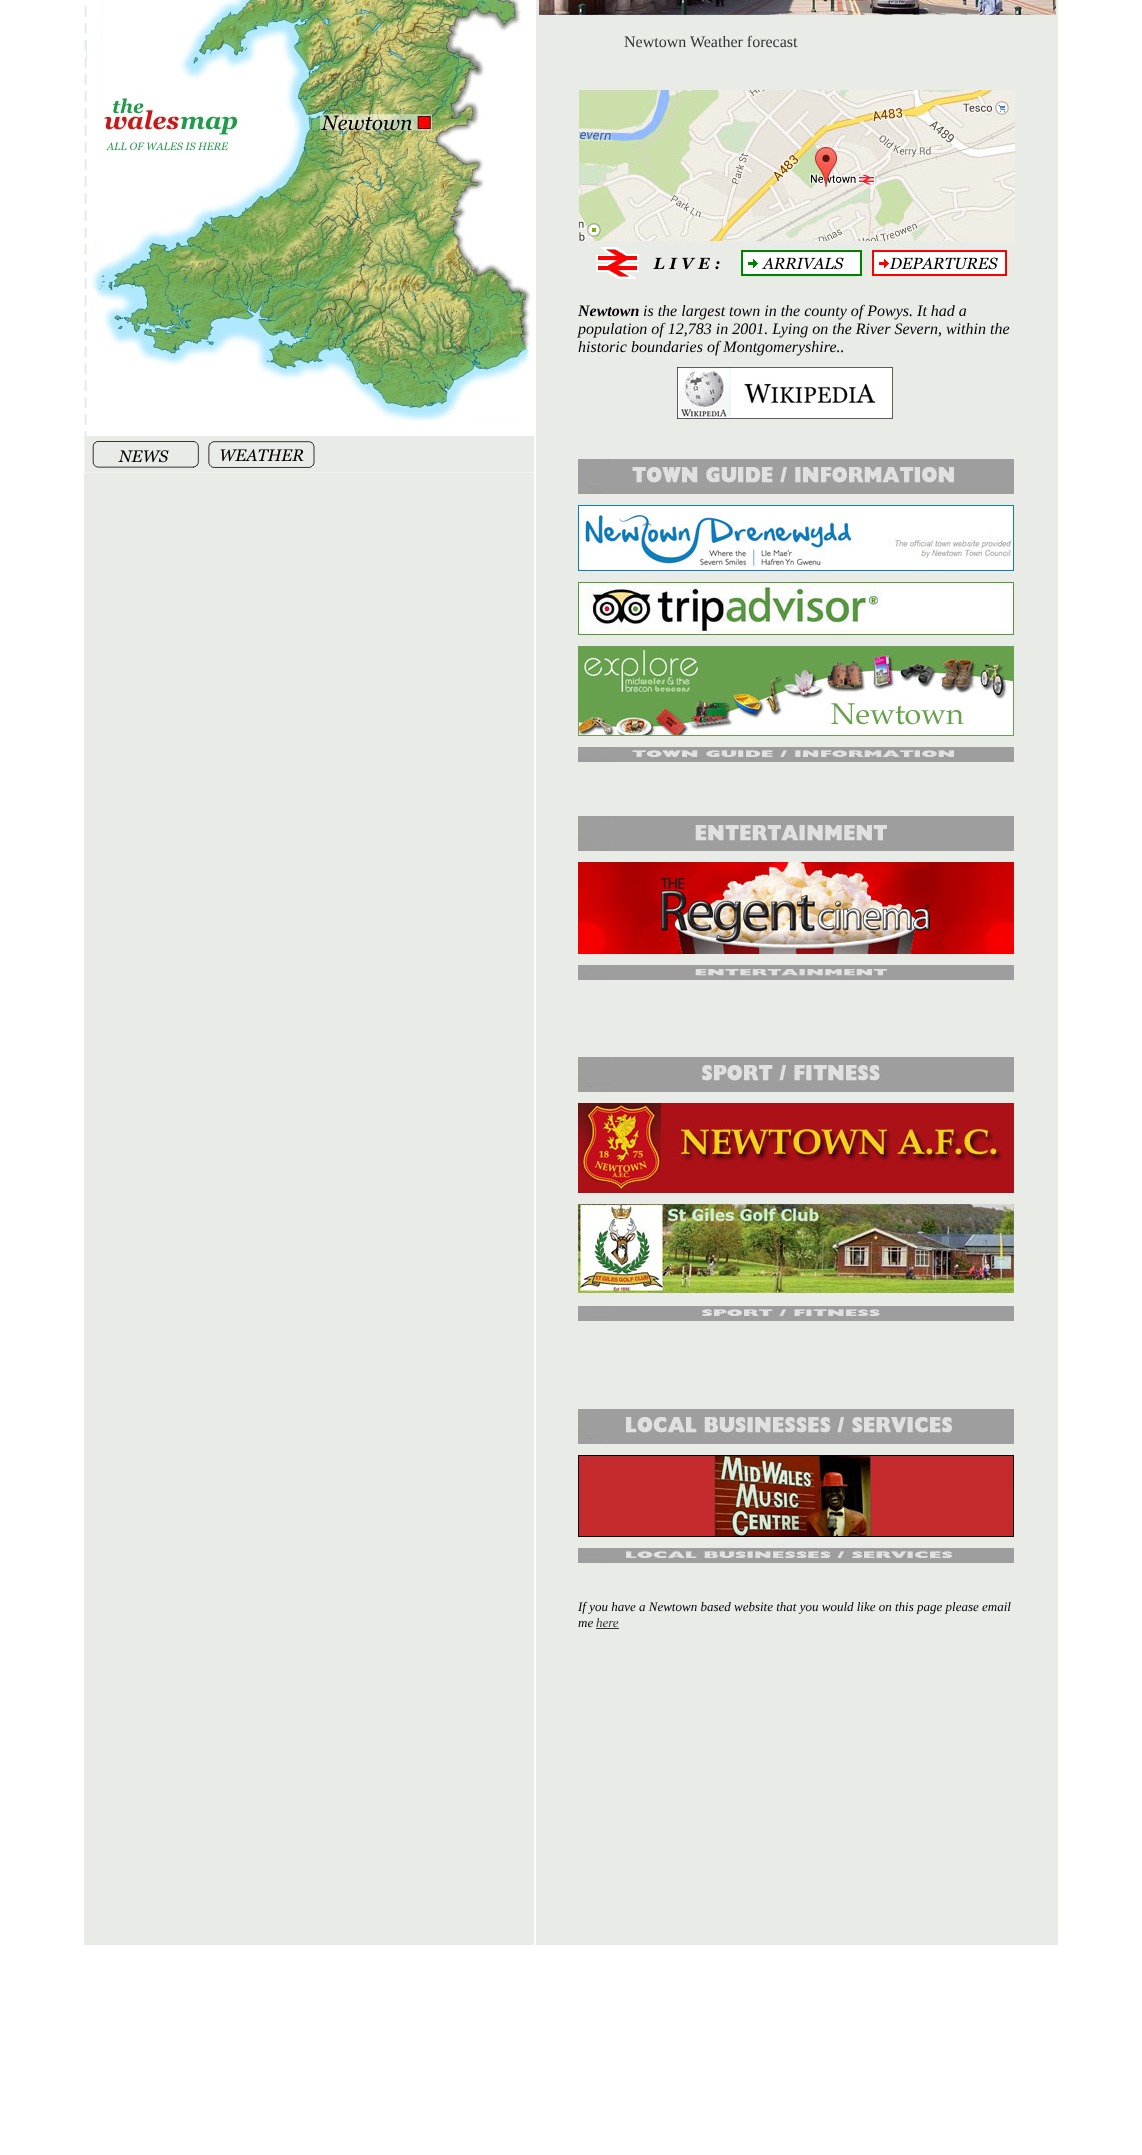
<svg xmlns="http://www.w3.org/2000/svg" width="1142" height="2155">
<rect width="100%" height="100%" fill="#fff"/>
<rect x="84" y="473" width="450" height="1472" fill="#e9ebe7"/>
<image x="84" y="0" width="450" height="473" href="media/1.png"/>
<rect x="536" width="522" height="1945" fill="#e9ebe7"/>
<image x="539" y="0" width="517" height="15" href="media/2.png"/>
<text x="624" y="47" style="font-family:Liberation Serif;font-size:16px;fill:#333">Newtown Weather forecast</text>
<image x="579" y="90" width="436" height="151" href="media/3.png"/>
<image x="596" y="247" width="412" height="34" href="media/4.png"/>
<text x="578" y="316" style="font-family:Liberation Serif;font-size:16px;font-weight:bold;font-style:italic;fill:#000">Newtown</text>
<text x="643" y="316" style="font-family:Liberation Serif;font-size:16px;font-style:italic;fill:#000">is the largest town in the county of Powys. It had a</text>
<text x="578" y="334" style="font-family:Liberation Serif;font-size:16px;font-style:italic;fill:#000">population of 12,783 in 2001. Lying on the River Severn, within the</text>
<text x="578" y="352" style="font-family:Liberation Serif;font-size:16px;font-style:italic;fill:#000">historic boundaries of Montgomeryshire..</text>
<image x="677" y="367" width="216" height="52" href="media/5.png"/>
<image x="578" y="459" width="436" height="35" href="media/6.png"/>
<image x="578" y="505" width="436" height="66" href="media/7.png"/>
<image x="578" y="582" width="436" height="53" href="media/8.png"/>
<image x="578" y="646" width="436" height="90" href="media/9.png"/>
<image x="578" y="747" width="436" height="15" href="media/10.png"/>
<image x="578" y="816" width="436" height="35" href="media/11.png"/>
<image x="578" y="862" width="436" height="92" href="media/12.png"/>
<image x="578" y="965" width="436" height="15" href="media/13.png"/>
<image x="578" y="1057" width="436" height="35" href="media/14.png"/>
<image x="578" y="1103" width="436" height="90" href="media/15.png"/>
<image x="578" y="1204" width="436" height="89" href="media/16.png"/>
<image x="578" y="1306" width="436" height="15" href="media/17.png"/>
<image x="578" y="1409" width="436" height="35" href="media/18.png"/>
<image x="578" y="1455" width="436" height="82" href="media/19.png"/>
<image x="578" y="1548" width="436" height="15" href="media/20.png"/>
<text x="578" y="1611" style="font-family:Liberation Serif;font-size:13px;font-style:italic;fill:#000">If you have a Newtown based website that you would like on this page please email</text>
<text x="578" y="1627" style="font-family:Liberation Serif;font-size:13px;font-style:italic;fill:#000">me</text>
<text x="596" y="1627" style="font-family:Liberation Serif;font-size:13px;font-style:italic;fill:#333">here</text>
<rect x="596" y="1628" width="23" height="1" fill="#333"/>
</svg>
